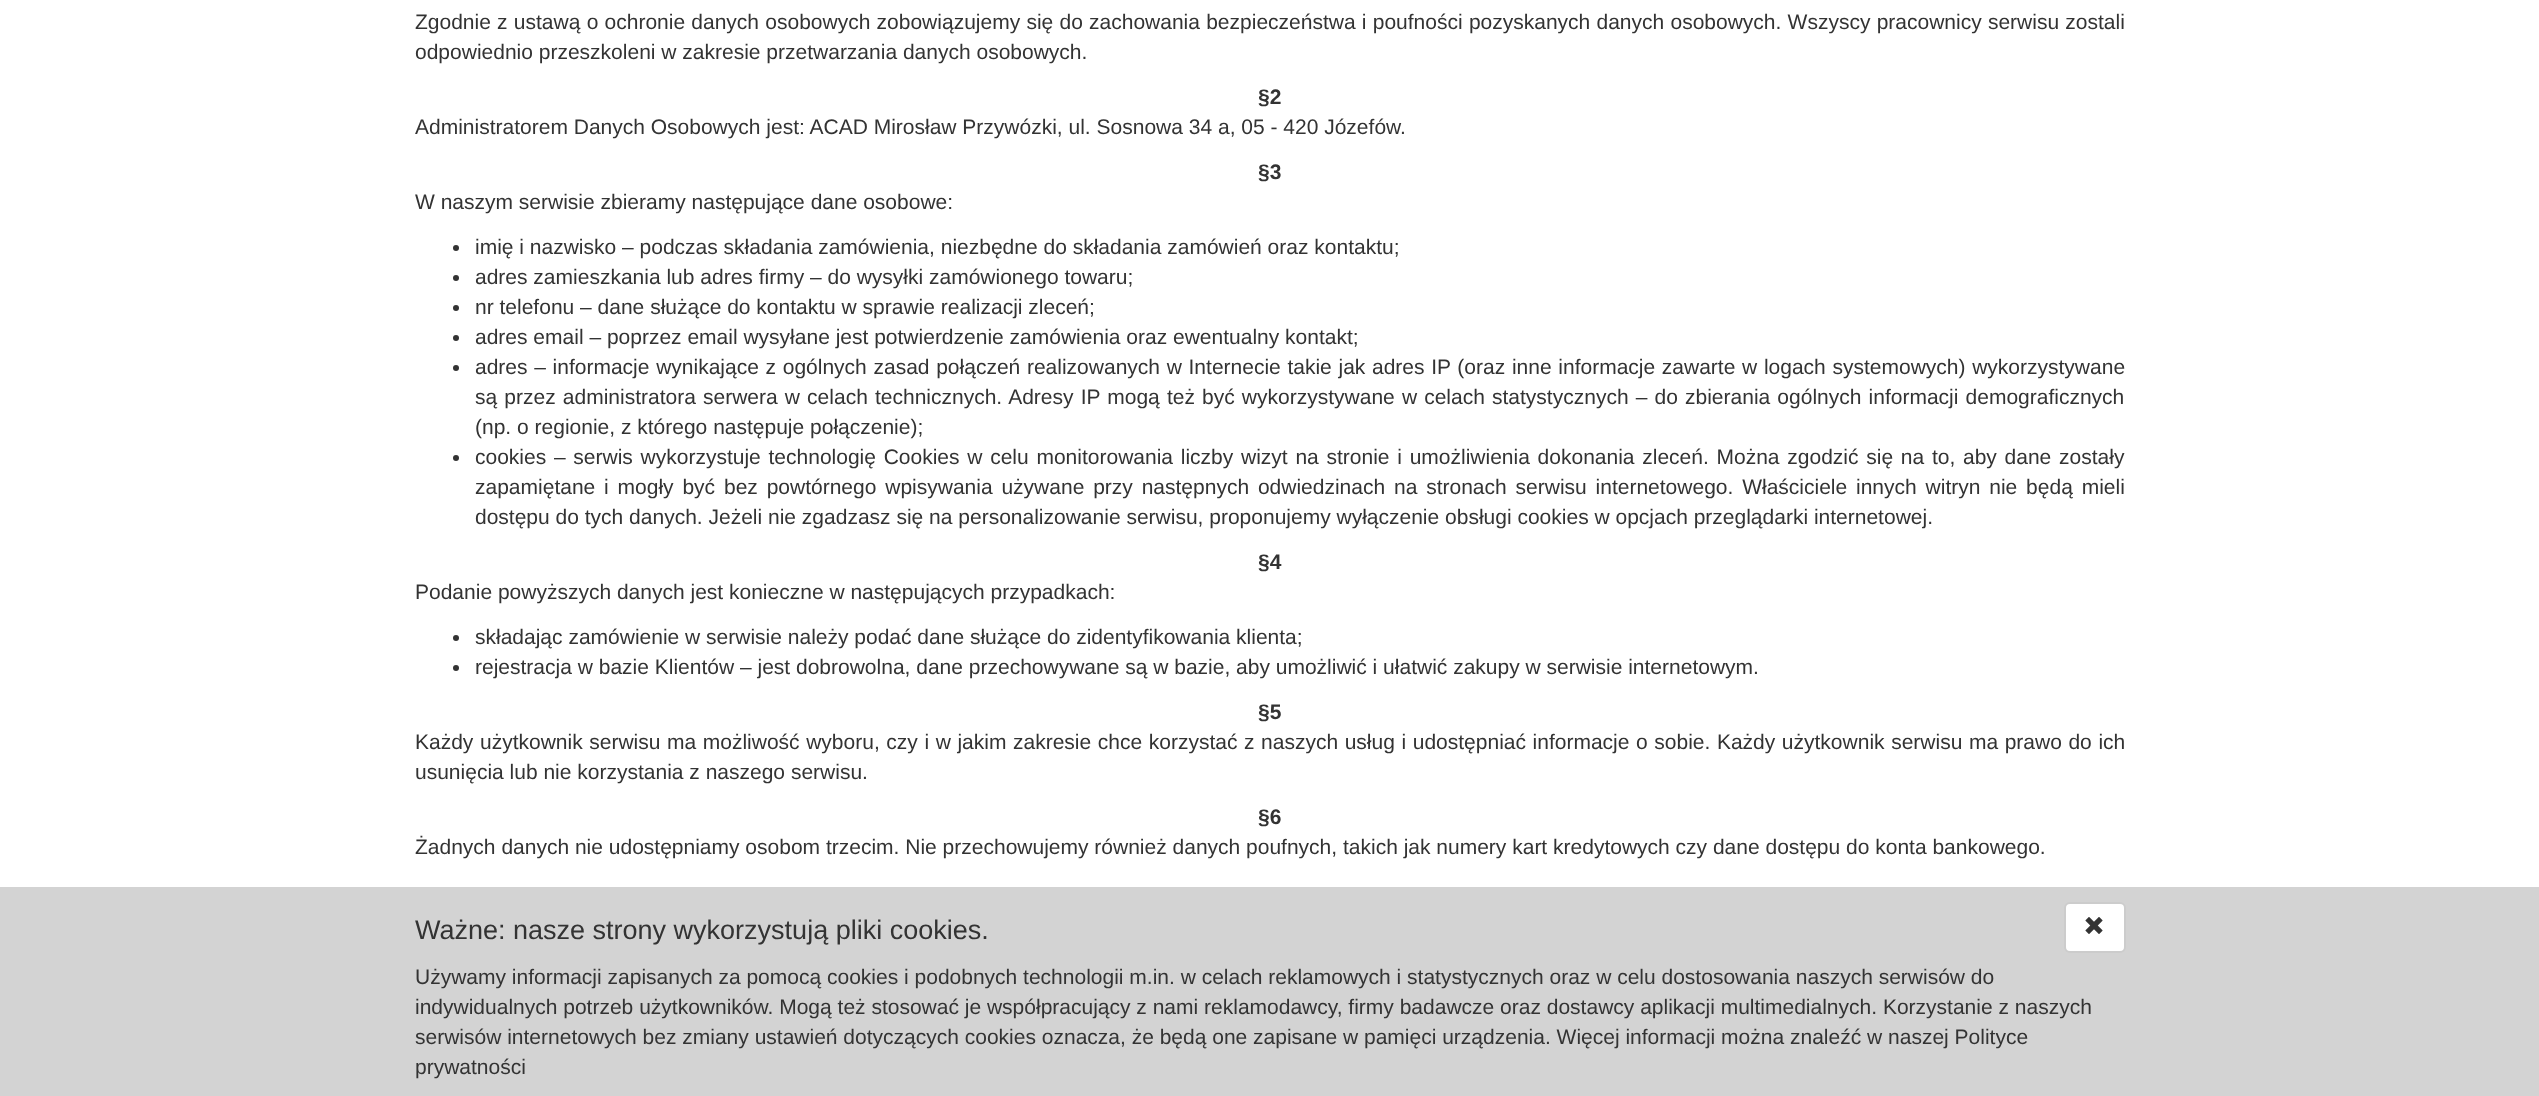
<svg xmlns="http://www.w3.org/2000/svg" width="2539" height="1096">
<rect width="100%" height="100%" fill="#fff"/>
<text x="415" y="29" word-spacing="0.4" style="font-family:Liberation Sans;font-size:21px;fill:#333">Zgodnie z ustawą o ochronie danych osobowych zobowiązujemy się do zachowania bezpieczeństwa i poufności pozyskanych danych osobowych. Wszyscy pracownicy serwisu zostali</text>
<text x="415" y="59" style="font-family:Liberation Sans;font-size:21px;fill:#333">odpowiednio przeszkoleni w zakresie przetwarzania danych osobowych.</text>
<text x="1258" y="104" style="font-family:Liberation Sans;font-size:21px;font-weight:bold;fill:#333">§2</text>
<text x="415" y="134" style="font-family:Liberation Sans;font-size:21px;fill:#333">Administratorem Danych Osobowych jest: ACAD Mirosław Przywózki, ul. Sosnowa 34 a, 05 - 420 Józefów.</text>
<text x="1258" y="179" style="font-family:Liberation Sans;font-size:21px;font-weight:bold;fill:#333">§3</text>
<text x="415" y="209" style="font-family:Liberation Sans;font-size:21px;fill:#333">W naszym serwisie zbieramy następujące dane osobowe:</text>
<circle cx="456" cy="248" r="3" fill="#333"/>
<text x="475" y="254" style="font-family:Liberation Sans;font-size:21px;fill:#333">imię i nazwisko – podczas składania zamówienia, niezbędne do składania zamówień oraz kontaktu;</text>
<circle cx="456" cy="278" r="3" fill="#333"/>
<text x="475" y="284" style="font-family:Liberation Sans;font-size:21px;fill:#333">adres zamieszkania lub adres firmy – do wysyłki zamówionego towaru;</text>
<circle cx="456" cy="308" r="3" fill="#333"/>
<text x="475" y="314" style="font-family:Liberation Sans;font-size:21px;fill:#333">nr telefonu – dane służące do kontaktu w sprawie realizacji zleceń;</text>
<circle cx="456" cy="338" r="3" fill="#333"/>
<text x="475" y="344" style="font-family:Liberation Sans;font-size:21px;fill:#333">adres email – poprzez email wysyłane jest potwierdzenie zamówienia oraz ewentualny kontakt;</text>
<circle cx="456" cy="368" r="3" fill="#333"/>
<text x="475" y="374" word-spacing="0.85" style="font-family:Liberation Sans;font-size:21px;fill:#333">adres – informacje wynikające z ogólnych zasad połączeń realizowanych w Internecie takie jak adres IP (oraz inne informacje zawarte w logach systemowych) wykorzystywane</text>
<text x="475" y="404" word-spacing="1.3" style="font-family:Liberation Sans;font-size:21px;fill:#333">są przez administratora serwera w celach technicznych. Adresy IP mogą też być wykorzystywane w celach statystycznych – do zbierania ogólnych informacji demograficznych</text>
<text x="475" y="434" style="font-family:Liberation Sans;font-size:21px;fill:#333">(np. o regionie, z którego następuje połączenie);</text>
<circle cx="456" cy="458" r="3" fill="#333"/>
<text x="475" y="464" word-spacing="1.9" style="font-family:Liberation Sans;font-size:21px;fill:#333">cookies – serwis wykorzystuje technologię Cookies w celu monitorowania liczby wizyt na stronie i umożliwienia dokonania zleceń. Można zgodzić się na to, aby dane zostały</text>
<text x="475" y="494" word-spacing="3" style="font-family:Liberation Sans;font-size:21px;fill:#333">zapamiętane i mogły być bez powtórnego wpisywania używane przy następnych odwiedzinach na stronach serwisu internetowego. Właściciele innych witryn nie będą mieli</text>
<text x="475" y="524" style="font-family:Liberation Sans;font-size:21px;fill:#333">dostępu do tych danych. Jeżeli nie zgadzasz się na personalizowanie serwisu, proponujemy wyłączenie obsługi cookies w opcjach przeglądarki internetowej.</text>
<text x="1258" y="569" style="font-family:Liberation Sans;font-size:21px;font-weight:bold;fill:#333">§4</text>
<text x="415" y="599" style="font-family:Liberation Sans;font-size:21px;fill:#333">Podanie powyższych danych jest konieczne w następujących przypadkach:</text>
<circle cx="456" cy="638" r="3" fill="#333"/>
<text x="475" y="644" style="font-family:Liberation Sans;font-size:21px;fill:#333">składając zamówienie w serwisie należy podać dane służące do zidentyfikowania klienta;</text>
<circle cx="456" cy="668" r="3" fill="#333"/>
<text x="475" y="674" style="font-family:Liberation Sans;font-size:21px;fill:#333">rejestracja w bazie Klientów – jest dobrowolna, dane przechowywane są w bazie, aby umożliwić i ułatwić zakupy w serwisie internetowym.</text>
<text x="1258" y="719" style="font-family:Liberation Sans;font-size:21px;font-weight:bold;fill:#333">§5</text>
<text x="415" y="749" word-spacing="0.75" style="font-family:Liberation Sans;font-size:21px;fill:#333">Każdy użytkownik serwisu ma możliwość wyboru, czy i w jakim zakresie chce korzystać z naszych usług i udostępniać informacje o sobie. Każdy użytkownik serwisu ma prawo do ich</text>
<text x="415" y="779" style="font-family:Liberation Sans;font-size:21px;fill:#333">usunięcia lub nie korzystania z naszego serwisu.</text>
<text x="1258" y="824" style="font-family:Liberation Sans;font-size:21px;font-weight:bold;fill:#333">§6</text>
<text x="415" y="854" style="font-family:Liberation Sans;font-size:21px;fill:#333">Żadnych danych nie udostępniamy osobom trzecim. Nie przechowujemy również danych poufnych, takich jak numery kart kredytowych czy dane dostępu do konta bankowego.</text>
<rect y="887" width="2539" height="209" fill="#d3d3d3"/>
<text x="415" y="939" style="font-family:Liberation Sans;font-size:27px;fill:#333">Ważne: nasze strony wykorzystują pliki cookies.</text>
<rect x="2065" y="903" width="60" height="49" rx="5" fill="#fff" stroke="#ccc" stroke-width="2"/>
<image x="2085" y="917" width="18" height="17" href="media/1.png"/>
<text x="415" y="984" style="font-family:Liberation Sans;font-size:21px;fill:#333">Używamy informacji zapisanych za pomocą cookies i podobnych technologii m.in. w celach reklamowych i statystycznych oraz w celu dostosowania naszych serwisów do</text>
<text x="415" y="1014" style="font-family:Liberation Sans;font-size:21px;fill:#333">indywidualnych potrzeb użytkowników. Mogą też stosować je współpracujący z nami reklamodawcy, firmy badawcze oraz dostawcy aplikacji multimedialnych. Korzystanie z naszych</text>
<text x="415" y="1044" style="font-family:Liberation Sans;font-size:21px;fill:#333">serwisów internetowych bez zmiany ustawień dotyczących cookies oznacza, że będą one zapisane w pamięci urządzenia. Więcej informacji można znaleźć w naszej Polityce</text>
<text x="415" y="1074" style="font-family:Liberation Sans;font-size:21px;fill:#333">prywatności</text>
</svg>
